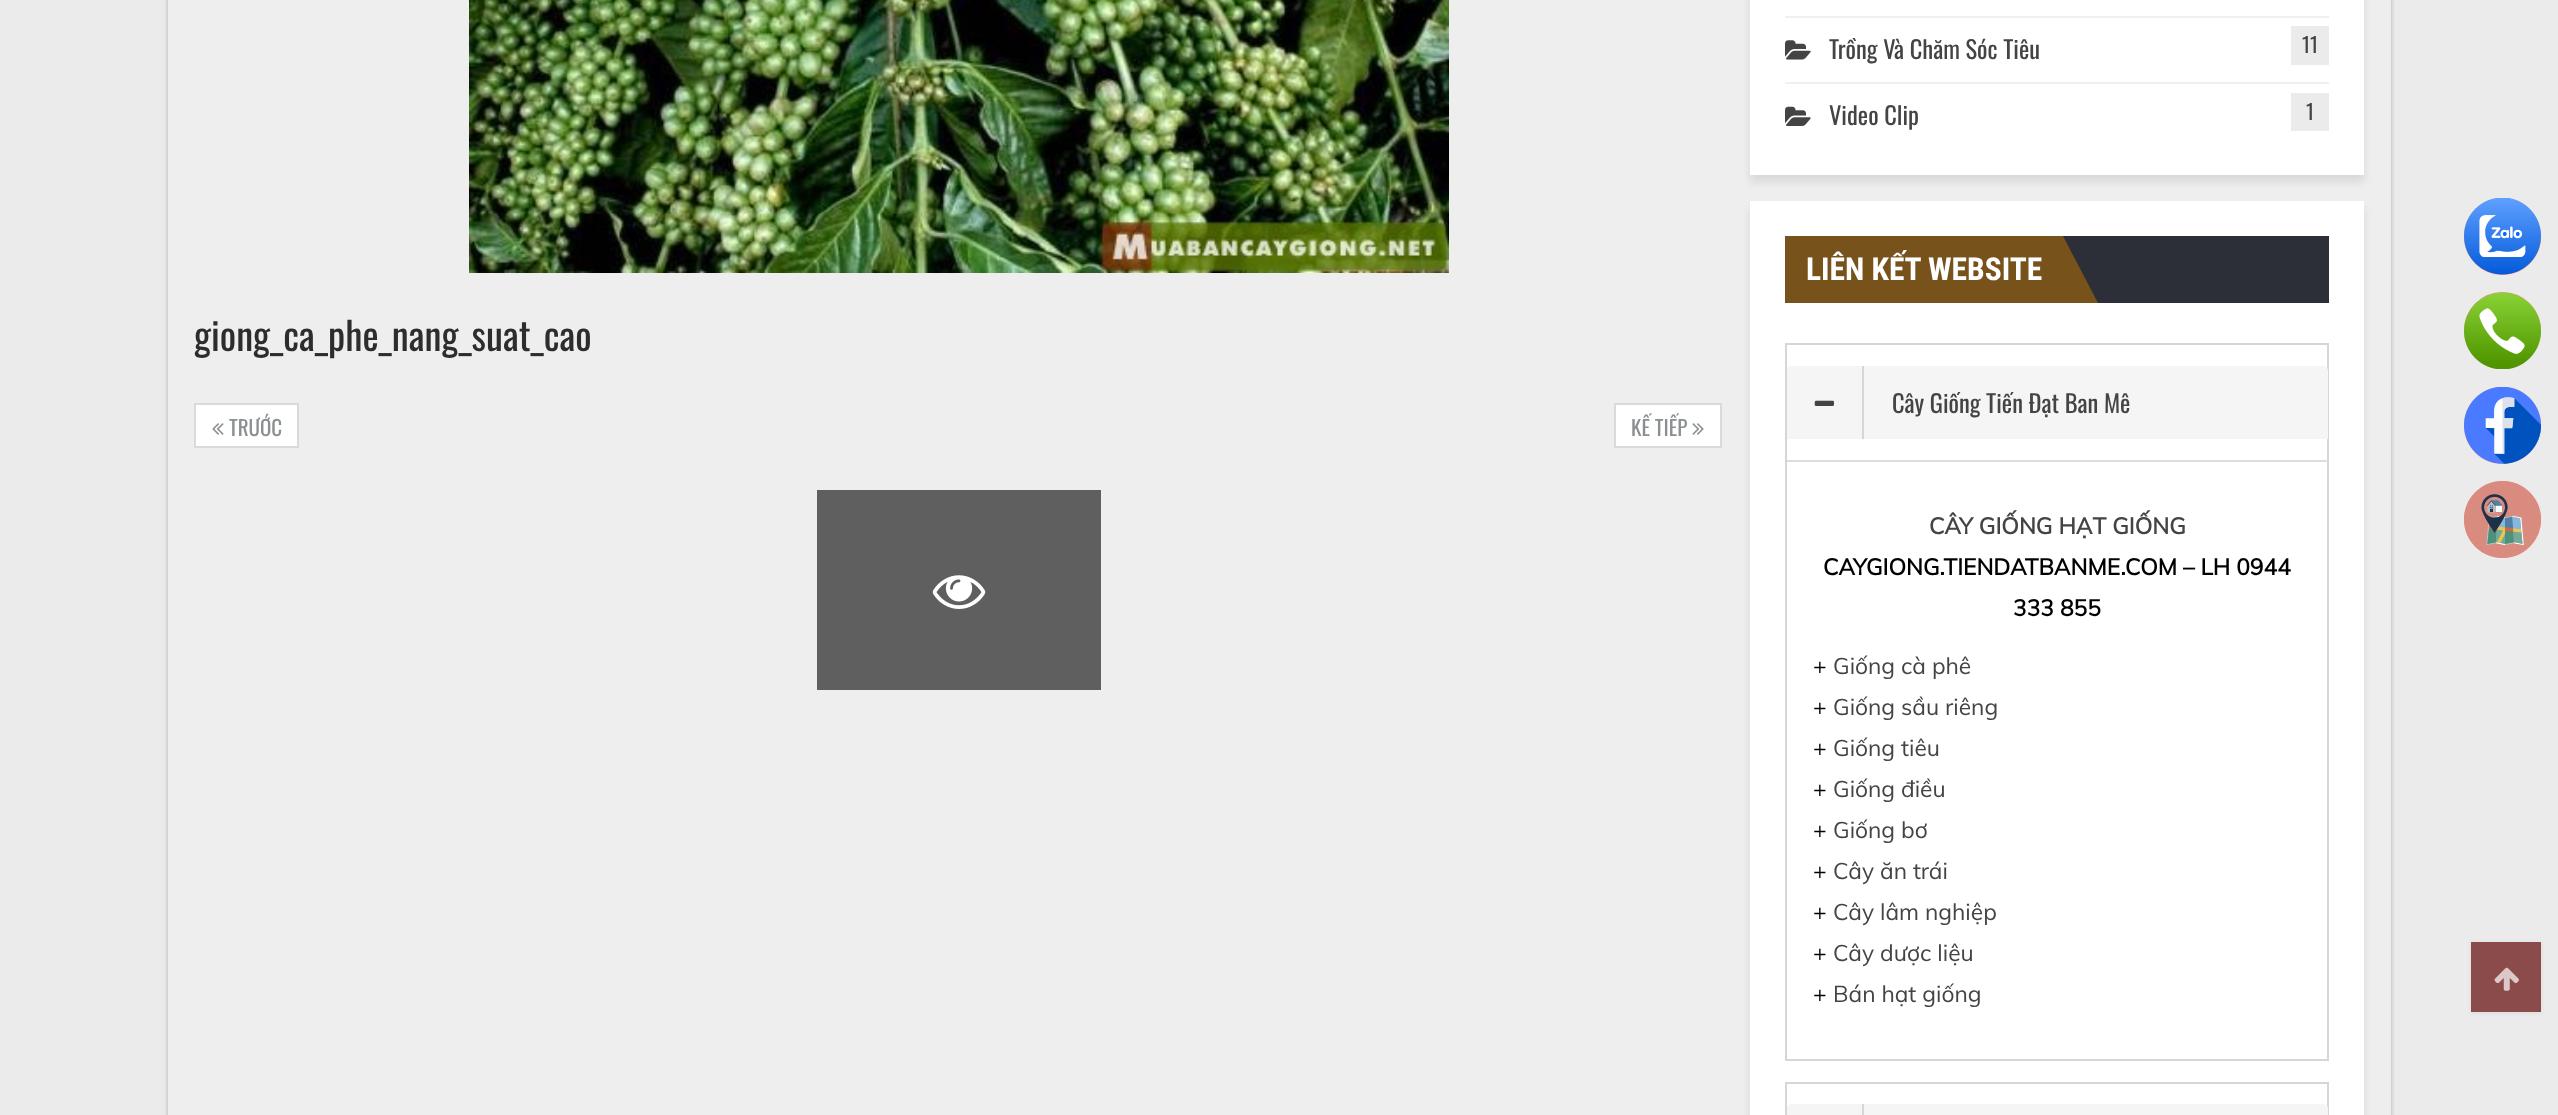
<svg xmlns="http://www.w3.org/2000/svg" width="2558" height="1115">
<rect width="100%" height="100%" fill="#ebebeb"/>
<rect x="168" y="-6" width="2223" height="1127" fill="#00000045" filter="blur(2px)"/>
<rect x="168" width="2223" height="1115" fill="#eee"/>
<image x="469" y="0" width="980" height="273" href="media/1.png"/>
<text x="194" y="351" style="font-family:Oswald;font-size:38.5px;fill:#2d2d2d">giong_ca_phe_nang_suat_cao</text>
<rect x="195" y="404" width="103" height="43" fill="#fff" stroke="#dadada" stroke-width="2"/>
<image x="212" y="423" width="12" height="12" href="media/2.png"/>
<text x="229" y="436" style="font-family:Oswald;font-size:21px;fill:#8a8f92">TRƯỚC</text>
<rect x="1615" y="404" width="106" height="43" fill="#fff" stroke="#dadada" stroke-width="2"/>
<text x="1631" y="436" style="font-family:Oswald;font-size:21px;fill:#8a8f92">KẾ TIẾP</text>
<image x="1692" y="423" width="12" height="12" href="media/3.png"/>
<rect x="817" y="490" width="284" height="200" fill="#5f5f5f"/>
<image x="932" y="575" width="54" height="34" href="media/4.png"/>
<rect x="1750" y="-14" width="614" height="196" fill="#00000017" filter="blur(4.5px)"/>
<rect x="1750" width="614" height="175" fill="#fff"/>
<rect x="1785" y="16" width="544" height="2" fill="#f0f0f0"/>
<rect x="1785" y="82" width="544" height="2" fill="#f0f0f0"/>
<image x="1785" y="40" width="26" height="20" href="media/5.png"/>
<text x="1829" y="59" style="font-family:Oswald;font-size:24.5px;fill:#444">Trồng Và Chăm Sóc Tiêu</text>
<rect x="2291" y="26" width="38" height="39" fill="#ebebeb"/>
<text x="2302" y="53" style="font-family:Oswald;font-size:21px;fill:#444">11</text>
<image x="1785" y="106" width="26" height="20" href="media/6.png"/>
<text x="1829" y="125" style="font-family:Oswald;font-size:24.5px;fill:#444">Video Clip</text>
<rect x="2291" y="93" width="38" height="38" fill="#ebebeb"/>
<text x="2306" y="120" style="font-family:Oswald;font-size:21px;fill:#444">1</text>
<rect x="1750" y="208" width="614" height="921" fill="#00000017" filter="blur(4.5px)"/>
<rect x="1750" y="201" width="614" height="914" fill="#fff"/>
<rect x="2063" y="236" width="266" height="67" fill="#2d2f38"/>
<rect x="1785" y="236" width="278" height="67" fill="#77521b"/>
<text x="1806" y="280" style="font-family:Roboto Condensed;font-size:31.5px;font-weight:bold;fill:#fff">LIÊN KẾT WEBSITE</text>
<path d="M2098 303h-35v-67z" fill="#77521b"/>
<rect x="1786" y="344" width="542" height="716" fill="none" stroke="#d6d6d6" stroke-width="2"/>
<path d="M1792 366h531c3 0 5 2 5 5v68h-541v-68c0-3 2-5 5-5z" fill="#f5f5f5"/>
<rect x="1862" y="366" width="2" height="73" fill="#d6d6d6"/>
<image x="1814" y="400" width="20" height="6" href="media/7.png"/>
<text x="1892" y="413" style="font-family:Oswald;font-size:24.5px;fill:#444">Cây Giống Tiến Đạt Ban Mê</text>
<rect x="1787" y="460" width="541" height="2" fill="#ddd"/>
<text x="1929" y="534" style="font-family:Muli;font-size:22.75px;font-weight:bold;fill:#444">CÂY GIỐNG HẠT GIỐNG</text>
<text x="1823" y="575" style="font-family:Muli;font-size:22.75px;font-weight:bold;fill:#000">CAYGIONG.TIENDATBANME.COM – LH 0944</text>
<text x="2013" y="616" style="font-family:Muli;font-size:22.75px;font-weight:bold;fill:#000">333 855</text>
<text x="1813" y="674" style="font-family:Muli;font-size:22.75px;fill:#000">+</text>
<text x="1833" y="674" style="font-family:Muli;font-size:22.75px;fill:#444">Giống cà phê</text>
<text x="1813" y="715" style="font-family:Muli;font-size:22.75px;fill:#000">+</text>
<text x="1833" y="715" style="font-family:Muli;font-size:22.75px;fill:#444">Giống sầu riêng</text>
<text x="1813" y="756" style="font-family:Muli;font-size:22.75px;fill:#000">+</text>
<text x="1833" y="756" style="font-family:Muli;font-size:22.75px;fill:#444">Giống tiêu</text>
<text x="1813" y="797" style="font-family:Muli;font-size:22.75px;fill:#000">+</text>
<text x="1833" y="797" style="font-family:Muli;font-size:22.75px;fill:#444">Giống điều</text>
<text x="1813" y="838" style="font-family:Muli;font-size:22.75px;fill:#000">+</text>
<text x="1833" y="838" style="font-family:Muli;font-size:22.75px;fill:#444">Giống bơ</text>
<text x="1813" y="879" style="font-family:Muli;font-size:22.75px;fill:#000">+</text>
<text x="1833" y="879" style="font-family:Muli;font-size:22.75px;fill:#444">Cây ăn trái</text>
<text x="1813" y="920" style="font-family:Muli;font-size:22.75px;fill:#000">+</text>
<text x="1833" y="920" style="font-family:Muli;font-size:22.75px;fill:#444">Cây lâm nghiệp</text>
<text x="1813" y="961" style="font-family:Muli;font-size:22.75px;fill:#000">+</text>
<text x="1833" y="961" style="font-family:Muli;font-size:22.75px;fill:#444">Cây dược liệu</text>
<text x="1813" y="1002" style="font-family:Muli;font-size:22.75px;fill:#000">+</text>
<text x="1833" y="1002" style="font-family:Muli;font-size:22.75px;fill:#444">Bán hạt giống</text>
<rect x="1786" y="1083" width="542" height="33" fill="none" stroke="#d6d6d6" stroke-width="2"/>
<path d="M1792 1104h531c3 0 5 2 5 5v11h-541v-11c0-3 2-5 5-5z" fill="#f5f5f5"/>
<rect x="1862" y="1104" width="2" height="11" fill="#d6d6d6"/>
<circle cx="2502.5" cy="236.5" r="37.5" fill="none" stroke="#f38d8d" stroke-width="2"/>
<image x="2464" y="198" width="77" height="77" href="media/8.png"/>
<circle cx="2502.5" cy="330.5" r="37.5" fill="none" stroke="#f38d8d" stroke-width="2"/>
<image x="2464" y="292" width="77" height="77" href="media/9.png"/>
<circle cx="2502.5" cy="425.5" r="37.5" fill="none" stroke="#f38d8d" stroke-width="2"/>
<image x="2464" y="387" width="77" height="77" href="media/10.png"/>
<circle cx="2502.5" cy="519.5" r="37.5" fill="none" stroke="#f38d8d" stroke-width="2"/>
<image x="2464" y="481" width="77" height="77" href="media/11.png"/>
<rect x="2471" y="943" width="70" height="70" fill="#47474717" filter="blur(2px)"/>
<rect x="2471" y="942" width="70" height="70" fill="#8c4b4b"/>
<image x="2494" y="967" width="25" height="24" href="media/12.png"/>
</svg>
